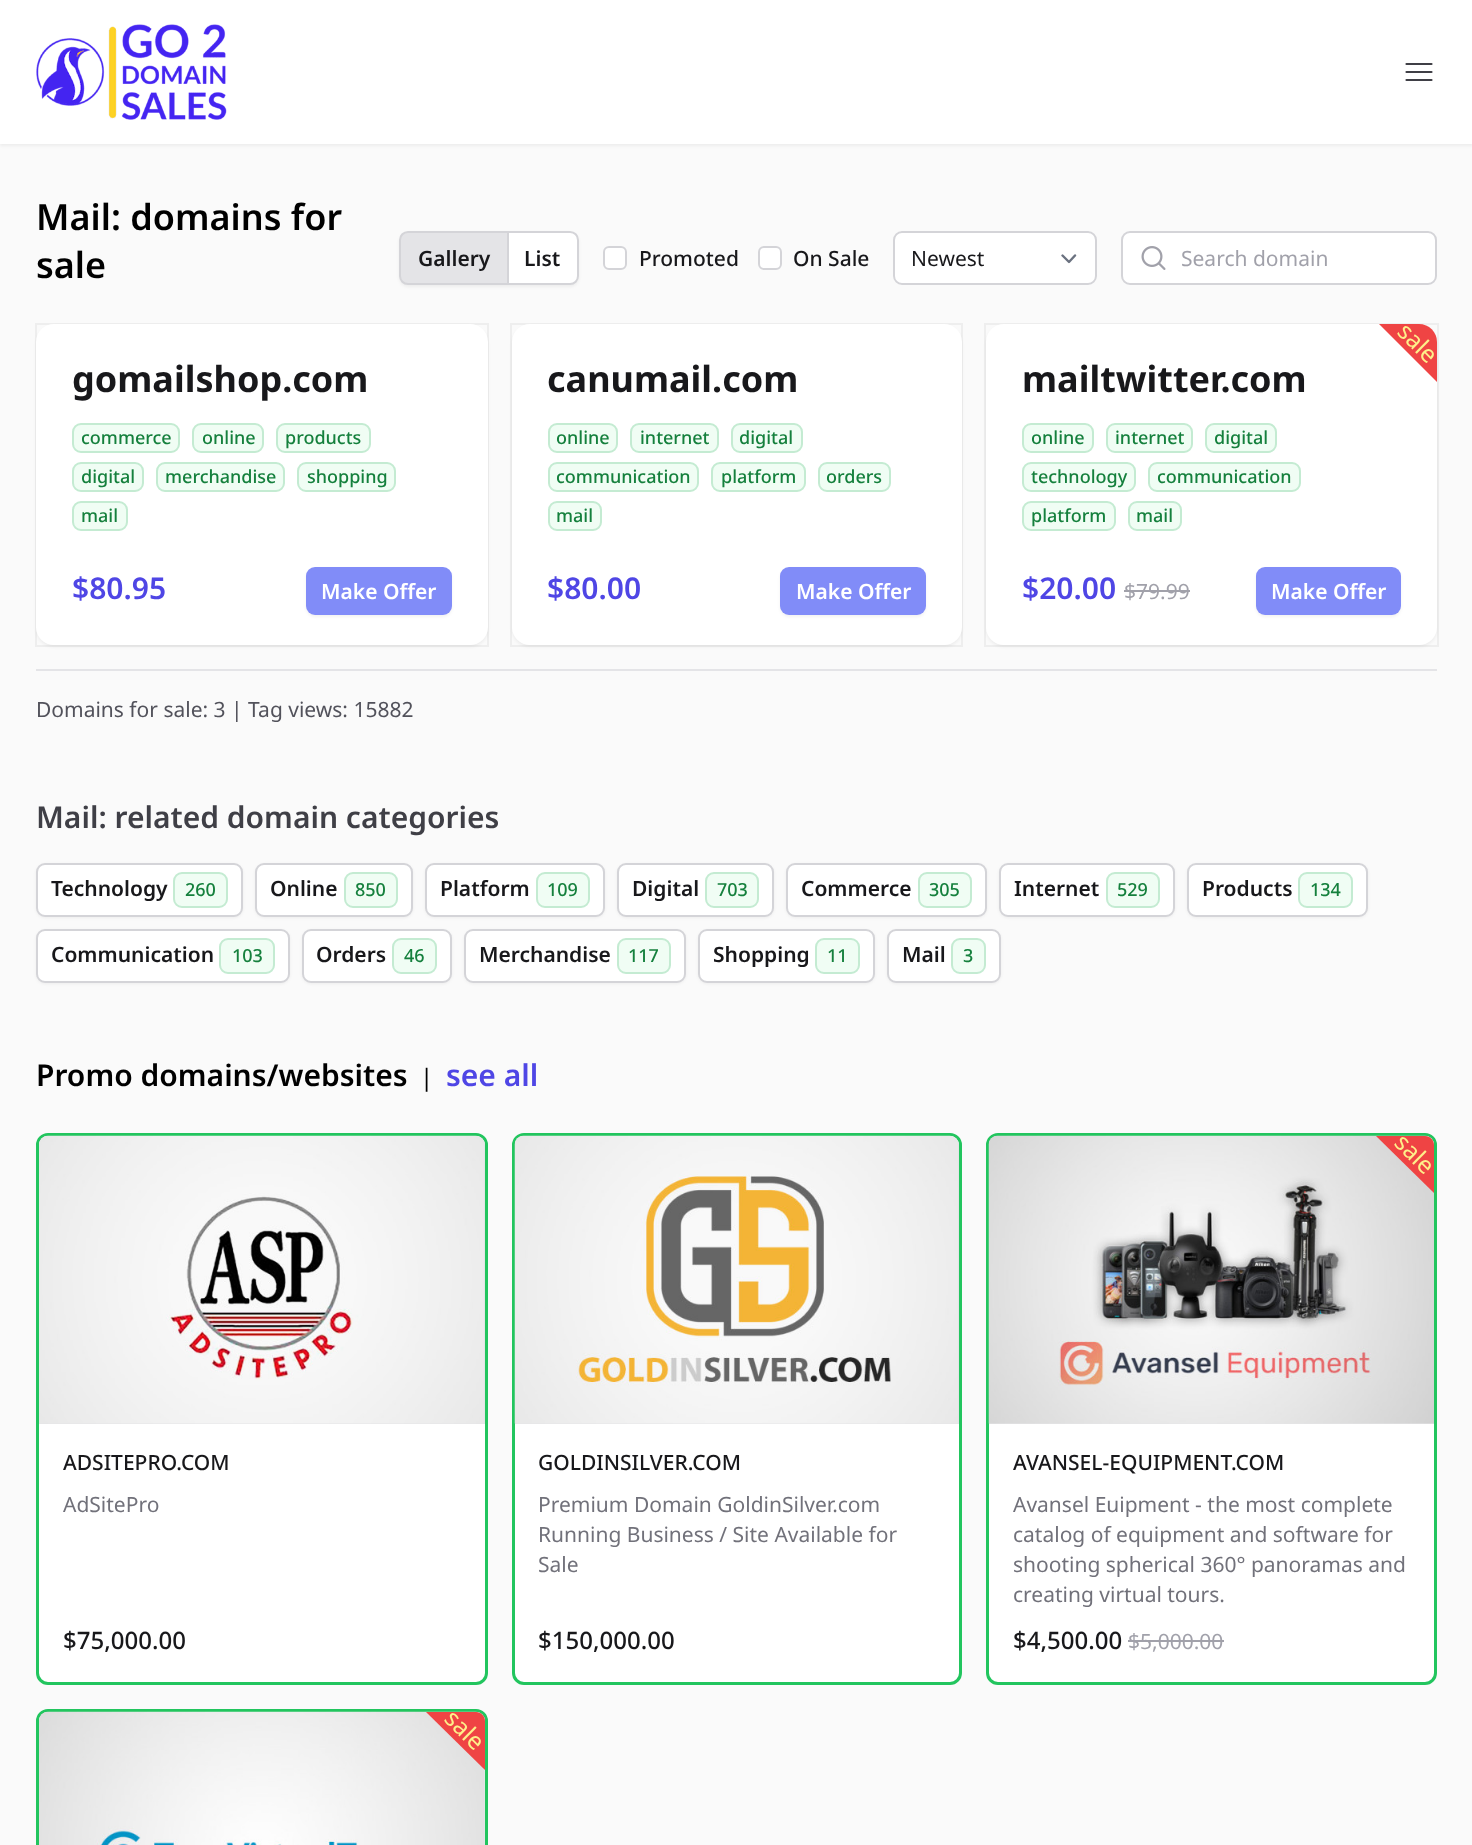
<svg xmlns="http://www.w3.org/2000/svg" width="1472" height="1845">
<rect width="100%" height="100%" fill="#fafafa"/>
<rect y="2" width="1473" height="144" fill="#0000000d" filter="blur(1.5px)"/>
<rect width="1472" height="144" fill="#fff"/>
<image x="36" y="24" width="191" height="96" href="media/1.png"/>
<path d="M1406.5 64h25m-25 8h25m-25 8h25" fill="none" stroke="#3f3f46" stroke-width="2.2" stroke-linecap="round" stroke-linejoin="round"/>
<text x="36" y="230" style="font-family:Noto Sans;font-size:36px;font-weight:600;fill:#000">Mail: domains for</text>
<text x="36" y="278" style="font-family:Noto Sans;font-size:36px;font-weight:600;fill:#000">sale</text>
<rect x="399" y="233" width="180" height="54" rx="9" fill="#0000000d" filter="blur(1.5px)"/>
<path d="M408 232h100v52h-100c-4.5 0-8-3.5-8-8v-36c0-4.5 3.5-8 8-8z" fill="#e4e4e7" stroke="#d4d4d8" stroke-width="2"/>
<text x="418" y="266" style="font-family:Noto Sans;font-size:21px;font-weight:600;fill:#18181b">Gallery</text>
<path d="M508 232h62c4.5 0 8 3.5 8 8v36c0 4.5-3.5 8-8 8h-62z" fill="#fff" stroke="#d4d4d8" stroke-width="2"/>
<text x="524" y="266" style="font-family:Noto Sans;font-size:21px;font-weight:600;fill:#18181b">List</text>
<rect x="604" y="247" width="22" height="22" rx="5" fill="#fff" stroke="#d4d4d8" stroke-width="2"/>
<text x="639" y="266" style="font-family:Noto Sans;font-size:21px;font-weight:500;fill:#18181b">Promoted</text>
<rect x="759" y="247" width="22" height="22" rx="5" fill="#fff" stroke="#d4d4d8" stroke-width="2"/>
<text x="793" y="266" style="font-family:Noto Sans;font-size:21px;font-weight:500;fill:#18181b">On Sale</text>
<rect x="893" y="231" width="204" height="54" rx="9" fill="#fff"/>
<path d="M1062.5 255.5l6.5 6.5l6-6.5" fill="none" stroke="#6b7280" stroke-width="2.4" stroke-linecap="round" stroke-linejoin="round"/>
<rect x="894" y="232" width="202" height="52" rx="8" fill="none" stroke="#d4d4d8" stroke-width="2"/>
<text x="911" y="266" style="font-family:Noto Sans;font-size:21px;fill:#18181b">Newest</text>
<rect x="1122" y="232" width="314" height="52" rx="8" fill="#fff" stroke="#d4d4d8" stroke-width="2"/>
<image x="1141" y="246" width="25" height="24" href="media/2.png"/>
<text x="1181" y="266" style="font-family:Noto Sans;font-size:21px;fill:#a1a1aa">Search domain</text>
<rect x="36" y="326" width="452" height="321" rx="18" fill="#0000000d" filter="blur(1.5px)"/>
<rect x="36" y="324" width="452" height="322" fill="none" stroke="#18181b0d" stroke-width="2"/>
<rect x="36" y="324" width="452" height="321" rx="18" fill="#fff"/>
<text x="72" y="392" style="font-family:Noto Sans;font-size:36px;font-weight:bold;fill:#18181b">gomailshop.com</text>
<rect x="72" y="423" width="108" height="30" rx="9" fill="#f0fdf4"/>
<rect x="73" y="424" width="106" height="28" rx="8" fill="none" stroke="#16a34a33" stroke-width="2"/>
<text x="81" y="444" style="font-family:Noto Sans;font-size:18px;font-weight:500;fill:#15803d">commerce</text>
<rect x="192" y="423" width="72" height="30" rx="9" fill="#f0fdf4"/>
<rect x="193" y="424" width="70" height="28" rx="8" fill="none" stroke="#16a34a33" stroke-width="2"/>
<text x="202" y="444" style="font-family:Noto Sans;font-size:18px;font-weight:500;fill:#15803d">online</text>
<rect x="276" y="423" width="95" height="30" rx="9" fill="#f0fdf4"/>
<rect x="277" y="424" width="93" height="28" rx="8" fill="none" stroke="#16a34a33" stroke-width="2"/>
<text x="285" y="444" style="font-family:Noto Sans;font-size:18px;font-weight:500;fill:#15803d">products</text>
<rect x="72" y="462" width="72" height="30" rx="9" fill="#f0fdf4"/>
<rect x="73" y="463" width="70" height="28" rx="8" fill="none" stroke="#16a34a33" stroke-width="2"/>
<text x="81" y="483" style="font-family:Noto Sans;font-size:18px;font-weight:500;fill:#15803d">digital</text>
<rect x="156" y="462" width="129" height="30" rx="9" fill="#f0fdf4"/>
<rect x="157" y="463" width="127" height="28" rx="8" fill="none" stroke="#16a34a33" stroke-width="2"/>
<text x="165" y="483" style="font-family:Noto Sans;font-size:18px;font-weight:500;fill:#15803d">merchandise</text>
<rect x="297" y="462" width="99" height="30" rx="9" fill="#f0fdf4"/>
<rect x="298" y="463" width="97" height="28" rx="8" fill="none" stroke="#16a34a33" stroke-width="2"/>
<text x="307" y="483" style="font-family:Noto Sans;font-size:18px;font-weight:500;fill:#15803d">shopping</text>
<rect x="72" y="501" width="56" height="30" rx="9" fill="#f0fdf4"/>
<rect x="73" y="502" width="54" height="28" rx="8" fill="none" stroke="#16a34a33" stroke-width="2"/>
<text x="81" y="522" style="font-family:Noto Sans;font-size:18px;font-weight:500;fill:#15803d">mail</text>
<text x="72" y="599" style="font-family:Noto Sans;font-size:30px;font-weight:600;fill:#4f46e5">$80.95</text>
<rect x="306" y="569" width="146" height="48" rx="9" fill="#0000000d" filter="blur(1.5px)"/>
<rect x="306" y="567" width="146" height="48" rx="9" fill="#818cf8"/>
<text x="321" y="599" style="font-family:Noto Sans;font-size:21px;font-weight:600;fill:#fff">Make Offer</text>
<rect x="512" y="326" width="450" height="321" rx="18" fill="#0000000d" filter="blur(1.5px)"/>
<rect x="511" y="324" width="451" height="322" fill="none" stroke="#18181b0d" stroke-width="2"/>
<rect x="512" y="324" width="450" height="321" rx="18" fill="#fff"/>
<text x="547" y="392" style="font-family:Noto Sans;font-size:36px;font-weight:bold;fill:#18181b">canumail.com</text>
<rect x="548" y="423" width="70" height="30" rx="9" fill="#f0fdf4"/>
<rect x="549" y="424" width="68" height="28" rx="8" fill="none" stroke="#16a34a33" stroke-width="2"/>
<text x="556" y="444" style="font-family:Noto Sans;font-size:18px;font-weight:500;fill:#15803d">online</text>
<rect x="630" y="423" width="89" height="30" rx="9" fill="#f0fdf4"/>
<rect x="631" y="424" width="87" height="28" rx="8" fill="none" stroke="#16a34a33" stroke-width="2"/>
<text x="640" y="444" style="font-family:Noto Sans;font-size:18px;font-weight:500;fill:#15803d">internet</text>
<rect x="731" y="423" width="72" height="30" rx="9" fill="#f0fdf4"/>
<rect x="732" y="424" width="70" height="28" rx="8" fill="none" stroke="#16a34a33" stroke-width="2"/>
<text x="739" y="444" style="font-family:Noto Sans;font-size:18px;font-weight:500;fill:#15803d">digital</text>
<rect x="548" y="462" width="151" height="30" rx="9" fill="#f0fdf4"/>
<rect x="549" y="463" width="149" height="28" rx="8" fill="none" stroke="#16a34a33" stroke-width="2"/>
<text x="556" y="483" style="font-family:Noto Sans;font-size:18px;font-weight:500;fill:#15803d">communication</text>
<rect x="711" y="462" width="95" height="30" rx="9" fill="#f0fdf4"/>
<rect x="712" y="463" width="93" height="28" rx="8" fill="none" stroke="#16a34a33" stroke-width="2"/>
<text x="721" y="483" style="font-family:Noto Sans;font-size:18px;font-weight:500;fill:#15803d">platform</text>
<rect x="818" y="462" width="73" height="30" rx="9" fill="#f0fdf4"/>
<rect x="819" y="463" width="71" height="28" rx="8" fill="none" stroke="#16a34a33" stroke-width="2"/>
<text x="826" y="483" style="font-family:Noto Sans;font-size:18px;font-weight:500;fill:#15803d">orders</text>
<rect x="548" y="501" width="54" height="30" rx="9" fill="#f0fdf4"/>
<rect x="549" y="502" width="52" height="28" rx="8" fill="none" stroke="#16a34a33" stroke-width="2"/>
<text x="556" y="522" style="font-family:Noto Sans;font-size:18px;font-weight:500;fill:#15803d">mail</text>
<text x="547" y="599" style="font-family:Noto Sans;font-size:30px;font-weight:600;fill:#4f46e5">$80.00</text>
<rect x="780" y="569" width="146" height="48" rx="9" fill="#0000000d" filter="blur(1.5px)"/>
<rect x="780" y="567" width="146" height="48" rx="9" fill="#818cf8"/>
<text x="796" y="599" style="font-family:Noto Sans;font-size:21px;font-weight:600;fill:#fff">Make Offer</text>
<rect x="986" y="326" width="451" height="321" rx="18" fill="#0000000d" filter="blur(1.5px)"/>
<rect x="985" y="324" width="453" height="322" fill="none" stroke="#18181b0d" stroke-width="2"/>
<rect x="986" y="324" width="451" height="321" rx="18" fill="#fff"/>
<path d="M1437 382l-58-58h40c10 0 18 8 18 18z" fill="#ef4444"/>
<text x="1396" y="333" transform="rotate(45 1396 333)" style="font-family:Noto Sans;font-size:24px;fill:#fef08a">sale</text>
<text x="1022" y="392" style="font-family:Noto Sans;font-size:36px;font-weight:bold;fill:#18181b">mailtwitter.com</text>
<rect x="1022" y="423" width="72" height="30" rx="9" fill="#f0fdf4"/>
<rect x="1023" y="424" width="70" height="28" rx="8" fill="none" stroke="#16a34a33" stroke-width="2"/>
<text x="1031" y="444" style="font-family:Noto Sans;font-size:18px;font-weight:500;fill:#15803d">online</text>
<rect x="1106" y="423" width="87" height="30" rx="9" fill="#f0fdf4"/>
<rect x="1107" y="424" width="85" height="28" rx="8" fill="none" stroke="#16a34a33" stroke-width="2"/>
<text x="1115" y="444" style="font-family:Noto Sans;font-size:18px;font-weight:500;fill:#15803d">internet</text>
<rect x="1205" y="423" width="72" height="30" rx="9" fill="#f0fdf4"/>
<rect x="1206" y="424" width="70" height="28" rx="8" fill="none" stroke="#16a34a33" stroke-width="2"/>
<text x="1214" y="444" style="font-family:Noto Sans;font-size:18px;font-weight:500;fill:#15803d">digital</text>
<rect x="1022" y="462" width="114" height="30" rx="9" fill="#f0fdf4"/>
<rect x="1023" y="463" width="112" height="28" rx="8" fill="none" stroke="#16a34a33" stroke-width="2"/>
<text x="1031" y="483" style="font-family:Noto Sans;font-size:18px;font-weight:500;fill:#15803d">technology</text>
<rect x="1148" y="462" width="153" height="30" rx="9" fill="#f0fdf4"/>
<rect x="1149" y="463" width="151" height="28" rx="8" fill="none" stroke="#16a34a33" stroke-width="2"/>
<text x="1157" y="483" style="font-family:Noto Sans;font-size:18px;font-weight:500;fill:#15803d">communication</text>
<rect x="1022" y="501" width="94" height="30" rx="9" fill="#f0fdf4"/>
<rect x="1023" y="502" width="92" height="28" rx="8" fill="none" stroke="#16a34a33" stroke-width="2"/>
<text x="1031" y="522" style="font-family:Noto Sans;font-size:18px;font-weight:500;fill:#15803d">platform</text>
<rect x="1128" y="501" width="54" height="30" rx="9" fill="#f0fdf4"/>
<rect x="1129" y="502" width="52" height="28" rx="8" fill="none" stroke="#16a34a33" stroke-width="2"/>
<text x="1136" y="522" style="font-family:Noto Sans;font-size:18px;font-weight:500;fill:#15803d">mail</text>
<text x="1022" y="599" style="font-family:Noto Sans;font-size:30px;font-weight:600;fill:#4f46e5">$20.00</text>
<text x="1124" y="599" style="font-family:Noto Sans;font-size:21px;fill:#a1a1aa">$79.99</text>
<rect x="1124" y="590" width="66" height="2" fill="#a1a1aa"/>
<rect x="1256" y="569" width="145" height="48" rx="9" fill="#0000000d" filter="blur(1.5px)"/>
<rect x="1256" y="567" width="145" height="48" rx="9" fill="#818cf8"/>
<text x="1271" y="599" style="font-family:Noto Sans;font-size:21px;font-weight:600;fill:#fff">Make Offer</text>
<rect x="36" y="669" width="1401" height="2" fill="#e4e4e7"/>
<text x="36" y="717" style="font-family:Noto Sans;font-size:21px;fill:#52525b">Domains for sale: 3 | Tag views: 15882</text>
<text x="36" y="828" style="font-family:Noto Sans;font-size:30px;font-weight:600;fill:#3f3f46">Mail: related domain categories</text>
<rect x="36" y="864" width="207" height="54" rx="9" fill="#0000000d" filter="blur(1.5px)"/>
<rect x="37" y="864" width="205" height="52" rx="8" fill="#fff" stroke="#d4d4d8" stroke-width="2"/>
<text x="51" y="896" style="font-family:Noto Sans;font-size:21px;font-weight:600;fill:#18181b">Technology</text>
<rect x="173" y="872" width="55" height="36" rx="9" fill="#f0fdf4"/>
<rect x="174" y="873" width="53" height="34" rx="8" fill="none" stroke="#16a34a33" stroke-width="2"/>
<text x="185" y="896" style="font-family:Noto Sans;font-size:18px;font-weight:500;fill:#15803d">260</text>
<rect x="255" y="864" width="158" height="54" rx="9" fill="#0000000d" filter="blur(1.5px)"/>
<rect x="256" y="864" width="156" height="52" rx="8" fill="#fff" stroke="#d4d4d8" stroke-width="2"/>
<text x="270" y="896" style="font-family:Noto Sans;font-size:21px;font-weight:600;fill:#18181b">Online</text>
<rect x="344" y="872" width="54" height="36" rx="9" fill="#f0fdf4"/>
<rect x="345" y="873" width="52" height="34" rx="8" fill="none" stroke="#16a34a33" stroke-width="2"/>
<text x="355" y="896" style="font-family:Noto Sans;font-size:18px;font-weight:500;fill:#15803d">850</text>
<rect x="425" y="864" width="180" height="54" rx="9" fill="#0000000d" filter="blur(1.5px)"/>
<rect x="426" y="864" width="178" height="52" rx="8" fill="#fff" stroke="#d4d4d8" stroke-width="2"/>
<text x="440" y="896" style="font-family:Noto Sans;font-size:21px;font-weight:600;fill:#18181b">Platform</text>
<rect x="536" y="872" width="54" height="36" rx="9" fill="#f0fdf4"/>
<rect x="537" y="873" width="52" height="34" rx="8" fill="none" stroke="#16a34a33" stroke-width="2"/>
<text x="547" y="896" style="font-family:Noto Sans;font-size:18px;font-weight:500;fill:#15803d">109</text>
<rect x="617" y="864" width="157" height="54" rx="9" fill="#0000000d" filter="blur(1.5px)"/>
<rect x="618" y="864" width="155" height="52" rx="8" fill="#fff" stroke="#d4d4d8" stroke-width="2"/>
<text x="632" y="896" style="font-family:Noto Sans;font-size:21px;font-weight:600;fill:#18181b">Digital</text>
<rect x="705" y="872" width="54" height="36" rx="9" fill="#f0fdf4"/>
<rect x="706" y="873" width="52" height="34" rx="8" fill="none" stroke="#16a34a33" stroke-width="2"/>
<text x="717" y="896" style="font-family:Noto Sans;font-size:18px;font-weight:500;fill:#15803d">703</text>
<rect x="786" y="864" width="201" height="54" rx="9" fill="#0000000d" filter="blur(1.5px)"/>
<rect x="787" y="864" width="199" height="52" rx="8" fill="#fff" stroke="#d4d4d8" stroke-width="2"/>
<text x="801" y="896" style="font-family:Noto Sans;font-size:21px;font-weight:600;fill:#18181b">Commerce</text>
<rect x="918" y="872" width="54" height="36" rx="9" fill="#f0fdf4"/>
<rect x="919" y="873" width="52" height="34" rx="8" fill="none" stroke="#16a34a33" stroke-width="2"/>
<text x="929" y="896" style="font-family:Noto Sans;font-size:18px;font-weight:500;fill:#15803d">305</text>
<rect x="999" y="864" width="176" height="54" rx="9" fill="#0000000d" filter="blur(1.5px)"/>
<rect x="1000" y="864" width="174" height="52" rx="8" fill="#fff" stroke="#d4d4d8" stroke-width="2"/>
<text x="1014" y="896" style="font-family:Noto Sans;font-size:21px;font-weight:600;fill:#18181b">Internet</text>
<rect x="1106" y="872" width="54" height="36" rx="9" fill="#f0fdf4"/>
<rect x="1107" y="873" width="52" height="34" rx="8" fill="none" stroke="#16a34a33" stroke-width="2"/>
<text x="1117" y="896" style="font-family:Noto Sans;font-size:18px;font-weight:500;fill:#15803d">529</text>
<rect x="1187" y="864" width="181" height="54" rx="9" fill="#0000000d" filter="blur(1.5px)"/>
<rect x="1188" y="864" width="179" height="52" rx="8" fill="#fff" stroke="#d4d4d8" stroke-width="2"/>
<text x="1202" y="896" style="font-family:Noto Sans;font-size:21px;font-weight:600;fill:#18181b">Products</text>
<rect x="1298" y="872" width="55" height="36" rx="9" fill="#f0fdf4"/>
<rect x="1299" y="873" width="53" height="34" rx="8" fill="none" stroke="#16a34a33" stroke-width="2"/>
<text x="1310" y="896" style="font-family:Noto Sans;font-size:18px;font-weight:500;fill:#15803d">134</text>
<rect x="36" y="930" width="254" height="54" rx="9" fill="#0000000d" filter="blur(1.5px)"/>
<rect x="37" y="930" width="252" height="52" rx="8" fill="#fff" stroke="#d4d4d8" stroke-width="2"/>
<text x="51" y="962" style="font-family:Noto Sans;font-size:21px;font-weight:600;fill:#18181b">Communication</text>
<rect x="219" y="938" width="56" height="36" rx="9" fill="#f0fdf4"/>
<rect x="220" y="939" width="54" height="34" rx="8" fill="none" stroke="#16a34a33" stroke-width="2"/>
<text x="232" y="962" style="font-family:Noto Sans;font-size:18px;font-weight:500;fill:#15803d">103</text>
<rect x="302" y="930" width="150" height="54" rx="9" fill="#0000000d" filter="blur(1.5px)"/>
<rect x="303" y="930" width="148" height="52" rx="8" fill="#fff" stroke="#d4d4d8" stroke-width="2"/>
<text x="316" y="962" style="font-family:Noto Sans;font-size:21px;font-weight:600;fill:#18181b">Orders</text>
<rect x="392" y="938" width="45" height="36" rx="9" fill="#f0fdf4"/>
<rect x="393" y="939" width="43" height="34" rx="8" fill="none" stroke="#16a34a33" stroke-width="2"/>
<text x="404" y="962" style="font-family:Noto Sans;font-size:18px;font-weight:500;fill:#15803d">46</text>
<rect x="464" y="930" width="222" height="54" rx="9" fill="#0000000d" filter="blur(1.5px)"/>
<rect x="465" y="930" width="220" height="52" rx="8" fill="#fff" stroke="#d4d4d8" stroke-width="2"/>
<text x="479" y="962" style="font-family:Noto Sans;font-size:21px;font-weight:600;fill:#18181b">Merchandise</text>
<rect x="617" y="938" width="54" height="36" rx="9" fill="#f0fdf4"/>
<rect x="618" y="939" width="52" height="34" rx="8" fill="none" stroke="#16a34a33" stroke-width="2"/>
<text x="628" y="962" style="font-family:Noto Sans;font-size:18px;font-weight:500;fill:#15803d">117</text>
<rect x="698" y="930" width="177" height="54" rx="9" fill="#0000000d" filter="blur(1.5px)"/>
<rect x="699" y="930" width="175" height="52" rx="8" fill="#fff" stroke="#d4d4d8" stroke-width="2"/>
<text x="713" y="962" style="font-family:Noto Sans;font-size:21px;font-weight:600;fill:#18181b">Shopping</text>
<rect x="815" y="938" width="45" height="36" rx="9" fill="#f0fdf4"/>
<rect x="816" y="939" width="43" height="34" rx="8" fill="none" stroke="#16a34a33" stroke-width="2"/>
<text x="827" y="962" style="font-family:Noto Sans;font-size:18px;font-weight:500;fill:#15803d">11</text>
<rect x="887" y="930" width="114" height="54" rx="9" fill="#0000000d" filter="blur(1.5px)"/>
<rect x="888" y="930" width="112" height="52" rx="8" fill="#fff" stroke="#d4d4d8" stroke-width="2"/>
<text x="902" y="962" style="font-family:Noto Sans;font-size:21px;font-weight:600;fill:#18181b">Mail</text>
<rect x="951" y="938" width="35" height="36" rx="9" fill="#f0fdf4"/>
<rect x="952" y="939" width="33" height="34" rx="8" fill="none" stroke="#16a34a33" stroke-width="2"/>
<text x="963" y="962" style="font-family:Noto Sans;font-size:18px;font-weight:500;fill:#15803d">3</text>
<text x="36" y="1086" style="font-family:Noto Sans;font-size:30px;font-weight:600;fill:#000">Promo domains/websites</text>
<text x="420" y="1086" style="font-family:Noto Sans;font-size:24px;fill:#000">|</text>
<text x="446" y="1086" style="font-family:Noto Sans;font-size:30px;font-weight:600;fill:#4f46e5">see all</text>
<rect x="37.5" y="1134.5" width="449" height="549" rx="10.5" fill="#fff" stroke="#22c55e" stroke-width="3"/>
<path d="M48 1136h428c5 0 9 4 9 9v279h-446v-279c0-5 4-9 9-9z" fill="#e4e4e7"/>
<image x="39" y="1135" width="445" height="289" href="media/3.png"/>
<text x="63" y="1470" style="font-family:Noto Sans;font-size:21px;font-weight:500;fill:#18181b">ADSITEPRO.COM</text>
<text x="63" y="1512" style="font-family:Noto Sans;font-size:21px;fill:#71717a">AdSitePro</text>
<text x="63" y="1649" style="font-family:Noto Sans;font-size:24px;font-weight:500;fill:#18181b">$75,000.00</text>
<rect x="513.5" y="1134.5" width="447" height="549" rx="10.5" fill="#fff" stroke="#22c55e" stroke-width="3"/>
<path d="M524 1136h426c5 0 9 4 9 9v279h-444v-279c0-5 4-9 9-9z" fill="#e4e4e7"/>
<image x="514" y="1135" width="444" height="289" href="media/4.png"/>
<text x="538" y="1470" style="font-family:Noto Sans;font-size:21px;font-weight:500;fill:#18181b">GOLDINSILVER.COM</text>
<text x="538" y="1512" style="font-family:Noto Sans;font-size:21px;fill:#71717a">Premium Domain GoldinSilver.com</text>
<text x="538" y="1542" style="font-family:Noto Sans;font-size:21px;fill:#71717a">Running Business / Site Available for</text>
<text x="538" y="1572" style="font-family:Noto Sans;font-size:21px;fill:#71717a">Sale</text>
<text x="538" y="1649" style="font-family:Noto Sans;font-size:24px;font-weight:500;fill:#18181b">$150,000.00</text>
<rect x="987.5" y="1134.5" width="448" height="549" rx="10.5" fill="#fff" stroke="#22c55e" stroke-width="3"/>
<path d="M998 1136h427c5 0 9 4 9 9v279h-445v-279c0-5 4-9 9-9z" fill="#e4e4e7"/>
<image x="988" y="1135" width="446" height="289" href="media/5.png"/>
<path d="M1434 1193l-58-57h49c5 0 9 4 9 9z" fill="#ef4444"/>
<text x="1393" y="1144" transform="rotate(45 1393 1144)" style="font-family:Noto Sans;font-size:24px;fill:#fef08a">sale</text>
<text x="1013" y="1470" style="font-family:Noto Sans;font-size:21px;font-weight:500;fill:#18181b">AVANSEL-EQUIPMENT.COM</text>
<text x="1013" y="1512" style="font-family:Noto Sans;font-size:21px;fill:#71717a">Avansel Euipment - the most complete</text>
<text x="1013" y="1542" style="font-family:Noto Sans;font-size:21px;fill:#71717a">catalog of equipment and software for</text>
<text x="1013" y="1572" style="font-family:Noto Sans;font-size:21px;fill:#71717a">shooting spherical 360° panoramas and</text>
<text x="1013" y="1602" style="font-family:Noto Sans;font-size:21px;fill:#71717a">creating virtual tours.</text>
<text x="1013" y="1649" style="font-family:Noto Sans;font-size:24px;font-weight:500;fill:#18181b">$4,500.00</text>
<text x="1128" y="1649" style="font-family:Noto Sans;font-size:21px;fill:#a1a1aa">$5,000.00</text>
<rect x="1128" y="1640" width="96" height="2" fill="#a1a1aa"/>
<rect x="37.5" y="1710.5" width="449" height="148" rx="10.5" fill="none" stroke="#22c55e" stroke-width="3"/>
<path d="M48 1712h428c5 0 9 4 9 9v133h-446v-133c0-5 4-9 9-9z" fill="#e4e4e7"/>
<image x="39" y="1711" width="445" height="134" href="media/6.png"/>
<path d="M485 1770l-59-58h50c5 0 9 4 9 9z" fill="#ef4444"/>
<text x="443" y="1720" transform="rotate(45 443 1720)" style="font-family:Noto Sans;font-size:24px;fill:#fef08a">sale</text>
</svg>
